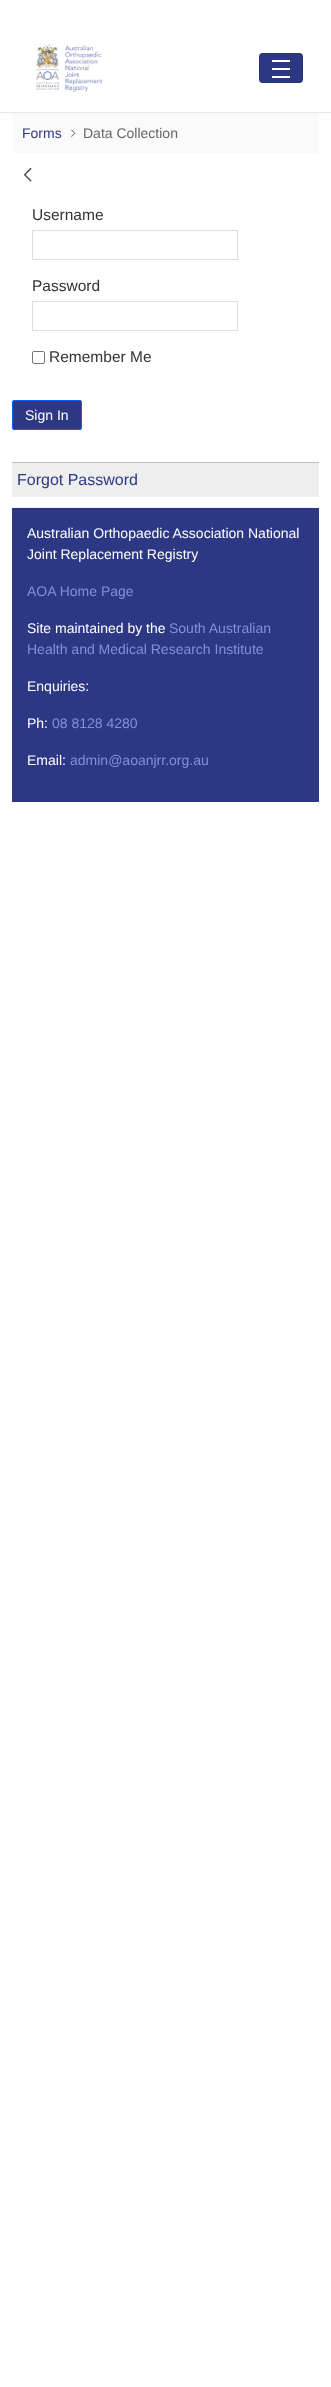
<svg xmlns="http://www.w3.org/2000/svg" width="331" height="2387">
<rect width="100%" height="100%" fill="#fff"/>
<rect y="112" width="331" height="1" fill="#e7e7ed"/>
<image x="35" y="44" width="68" height="48" href="media/1.png"/>
<rect x="259" y="53" width="44" height="30" rx="4" fill="#2d3884"/>
<rect x="259.5" y="53.5" width="43" height="29" rx="3.5" fill="none" stroke="#0000001a"/>
<image x="272" y="60" width="18" height="18" href="media/2.png"/>
<rect x="12" y="113" width="307" height="40" fill="#fafafa"/>
<text x="22" y="138" style="font-family:Liberation Sans;font-size:14px;fill:#2d3884">Forms</text>
<image x="71" y="129" width="5" height="8" href="media/3.png"/>
<text x="83" y="138" style="font-family:Liberation Sans;font-size:14px;fill:#676767">Data Collection</text>
<image x="24" y="168" width="8" height="14" href="media/4.png"/>
<text x="32" y="220" style="font-family:Liberation Sans;font-size:15.5px;fill:#333">Username</text>
<rect x="32.5" y="230.5" width="205" height="29" fill="none" stroke="#ddd"/>
<text x="32" y="291" style="font-family:Liberation Sans;font-size:15.5px;fill:#333">Password</text>
<rect x="32.5" y="301.5" width="205" height="29" fill="none" stroke="#ddd"/>
<rect x="32.5" y="351.5" width="12" height="12" rx="1.5" fill="none" stroke="#767676"/>
<text x="49" y="362" style="font-family:Liberation Sans;font-size:15.5px;fill:#333">Remember Me</text>
<rect x="12.5" y="400.5" width="69" height="29" rx="1.5" fill="#2d3884" stroke="#0b5fff"/>
<text x="25" y="420" style="font-family:Liberation Sans;font-size:14px;fill:#fff">Sign In</text>
<rect x="12" y="463" width="307" height="34" fill="#eee"/>
<rect x="12" y="462" width="307" height="1" fill="#bfbfbf"/>
<text x="17" y="485" style="font-family:Liberation Sans;font-size:16px;fill:#2d3884">Forgot Password</text>
<rect x="12" y="508" width="307" height="294" fill="#2d3884"/>
<rect x="12" y="507" width="307" height="1" fill="#f1f2f5"/>
<text x="27" y="538" style="font-family:Liberation Sans;font-size:14px;fill:#fff">Australian Orthopaedic Association National</text>
<text x="27" y="559" style="font-family:Liberation Sans;font-size:14px;fill:#fff">Joint Replacement Registry</text>
<text x="27" y="596" style="font-family:Liberation Sans;font-size:14px;fill:#858fd6">AOA Home Page</text>
<text x="27" y="633" style="font-family:Liberation Sans;font-size:14px;fill:#fff">Site maintained by the</text>
<text x="169" y="633" style="font-family:Liberation Sans;font-size:14px;fill:#858fd6">South Australian</text>
<text x="27" y="654" style="font-family:Liberation Sans;font-size:14px;fill:#858fd6">Health and Medical Research Institute</text>
<text x="27" y="691" style="font-family:Liberation Sans;font-size:14px;fill:#fff">Enquiries:</text>
<text x="27" y="728" style="font-family:Liberation Sans;font-size:14px;fill:#fff">Ph:</text>
<text x="52" y="728" style="font-family:Liberation Sans;font-size:14px;fill:#858fd6">08 8128 4280</text>
<text x="27" y="765" style="font-family:Liberation Sans;font-size:14px;fill:#fff">Email:</text>
<text x="70" y="765" style="font-family:Liberation Sans;font-size:14px;fill:#858fd6">admin@aoanjrr.org.au</text>
</svg>
